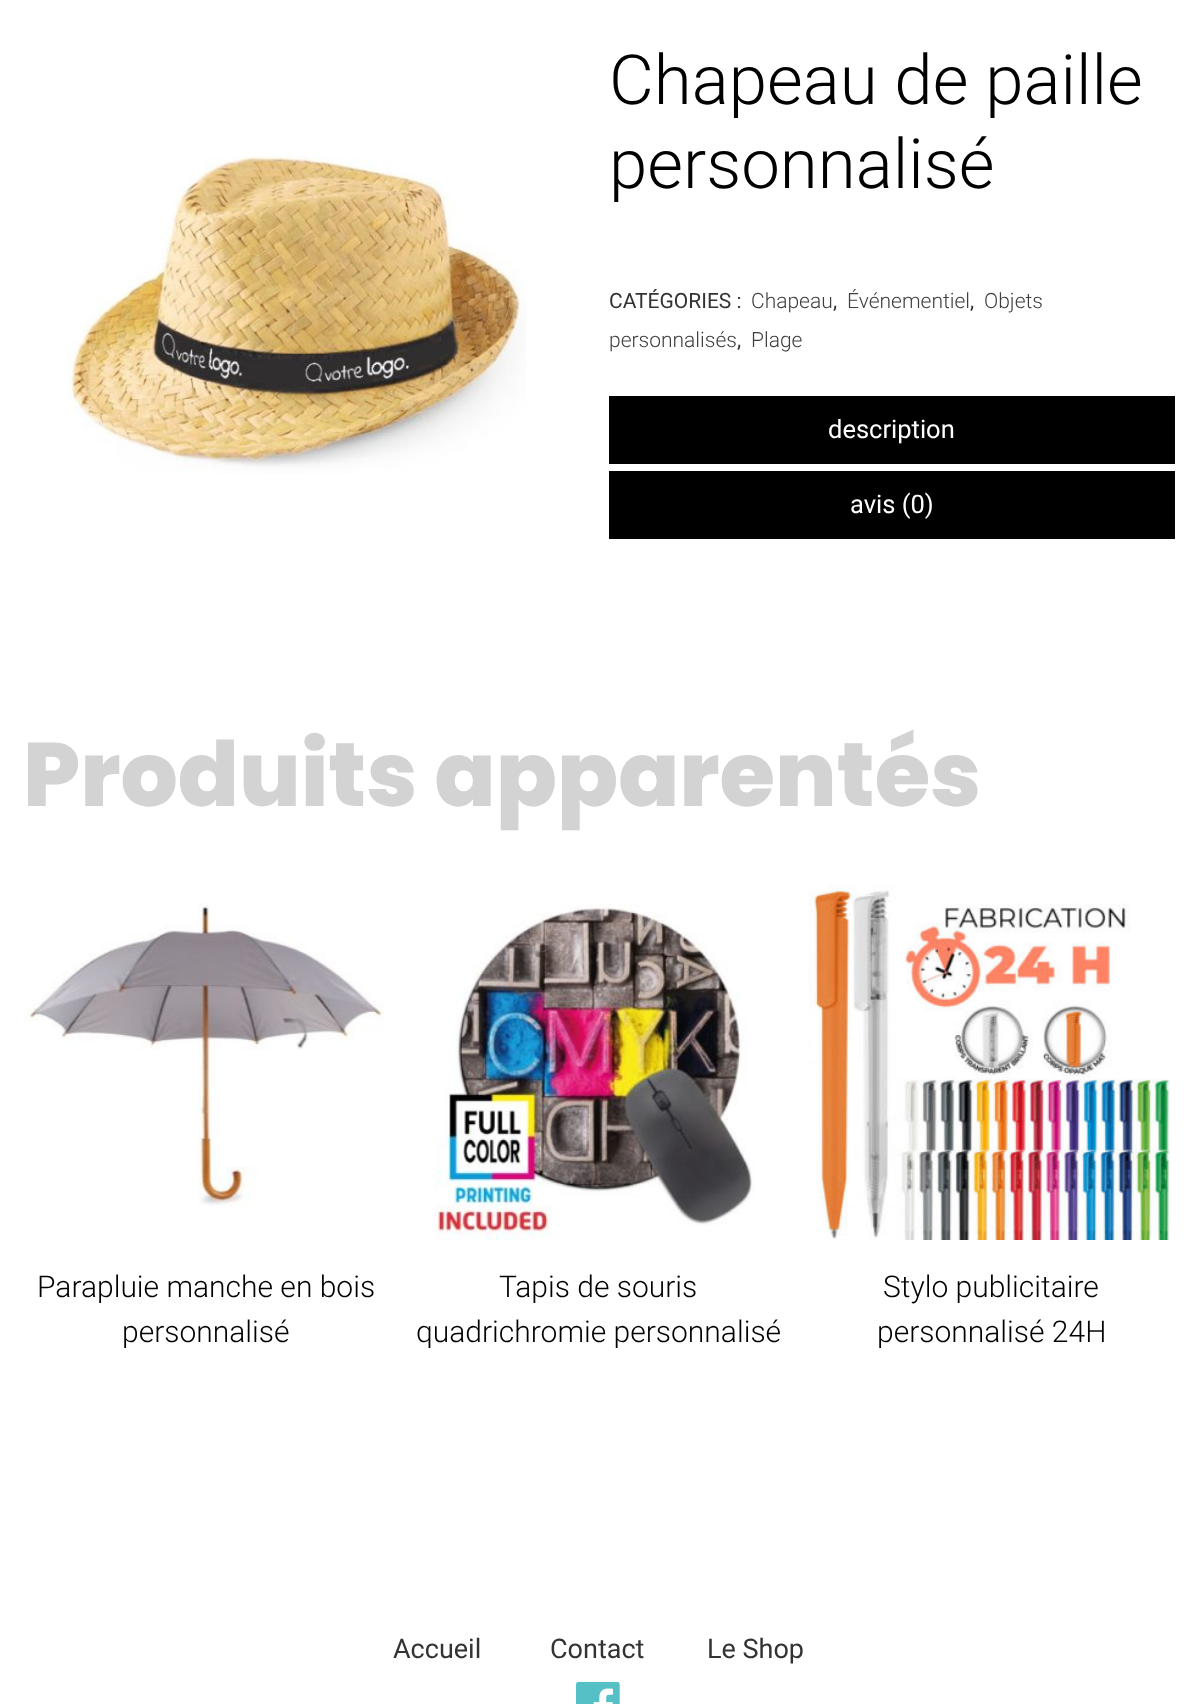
<svg xmlns="http://www.w3.org/2000/svg" width="1197" height="1704">
<rect width="100%" height="100%" fill="#fff"/>
<image x="67" y="156" width="459" height="318" href="media/1.png"/>
<text x="609" y="104" style="font-family:Roboto;font-size:69px;font-weight:300;fill:#000">Chapeau de paille</text>
<text x="609" y="188" style="font-family:Roboto;font-size:69px;font-weight:300;fill:#000">personnalisé</text>
<text x="609" y="308" style="font-family:Roboto;font-size:21px;fill:#333">CATÉGORIES :</text>
<text x="751" y="308" style="font-family:Roboto;font-size:21px;font-weight:300;fill:#3f3f3f">Chapeau</text>
<text x="833" y="308" style="font-family:Roboto;font-size:21px;fill:#333">,</text>
<text x="847" y="308" style="font-family:Roboto;font-size:21px;font-weight:300;fill:#3f3f3f">Événementiel</text>
<text x="970" y="308" style="font-family:Roboto;font-size:21px;fill:#333">,</text>
<text x="984" y="308" style="font-family:Roboto;font-size:21px;font-weight:300;fill:#3f3f3f">Objets</text>
<text x="609" y="347" style="font-family:Roboto;font-size:21px;font-weight:300;fill:#3f3f3f">personnalisés</text>
<text x="737" y="347" style="font-family:Roboto;font-size:21px;fill:#333">,</text>
<text x="751" y="347" style="font-family:Roboto;font-size:21px;font-weight:300;fill:#3f3f3f">Plage</text>
<rect x="609" y="396" width="566" height="68" fill="#000"/>
<text x="828" y="438" style="font-family:Roboto;font-size:25.5px;fill:#fff">description</text>
<rect x="609" y="471" width="566" height="68" fill="#000"/>
<text x="850" y="513" style="font-family:Roboto;font-size:25.5px;fill:#fff">avis (0)</text>
<text x="23" y="806" style="font-family:Poppins;font-size:90px;font-weight:800;fill:#d3d3d3">Produits apparentés</text>
<image x="23" y="903" width="363" height="303" href="media/2.png"/>
<text x="37" y="1297" style="font-family:Roboto;font-size:30px;font-weight:300;fill:#000">Parapluie manche en bois</text>
<text x="122" y="1342" style="font-family:Roboto;font-size:30px;font-weight:300;fill:#000">personnalisé</text>
<image x="434" y="903" width="321" height="337" href="media/3.png"/>
<text x="499" y="1297" style="font-family:Roboto;font-size:30px;font-weight:300;fill:#000">Tapis de souris</text>
<text x="416" y="1342" style="font-family:Roboto;font-size:30px;font-weight:300;fill:#000">quadrichromie personnalisé</text>
<image x="808" y="884" width="362" height="356" href="media/4.png"/>
<text x="883" y="1297" style="font-family:Roboto;font-size:30px;font-weight:300;fill:#000">Stylo publicitaire</text>
<text x="877" y="1342" style="font-family:Roboto;font-size:30px;font-weight:300;fill:#000">personnalisé 24H</text>
<text x="393" y="1658" style="font-family:Roboto;font-size:27px;fill:#333">Accueil</text>
<text x="550" y="1658" style="font-family:Roboto;font-size:27px;fill:#333">Contact</text>
<text x="707" y="1658" style="font-family:Roboto;font-size:27px;fill:#333">Le Shop</text>
<image x="576" y="1681" width="44" height="23" href="media/5.png"/>
</svg>
